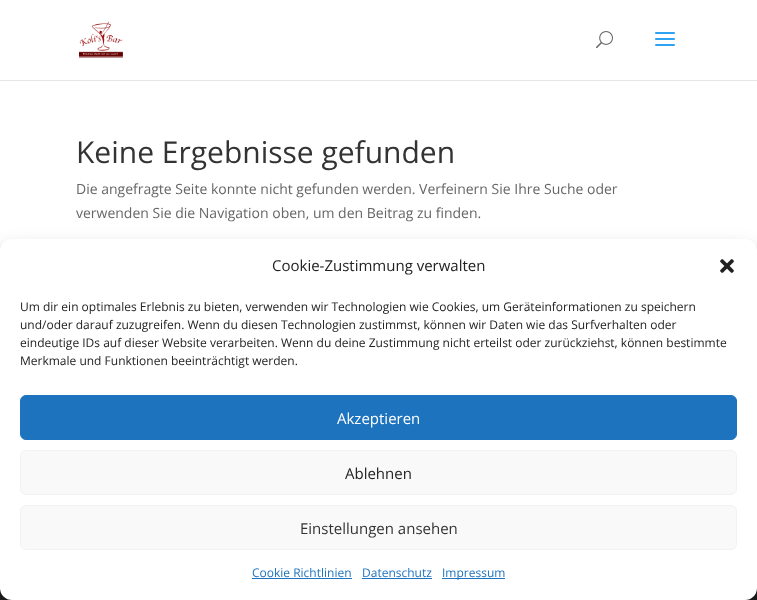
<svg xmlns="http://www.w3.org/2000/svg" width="757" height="600">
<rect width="100%" height="100%" fill="#fff"/>
<rect y="80" width="757" height="1" fill="#e6e6e6"/>
<image x="79" y="21" width="44" height="37" href="media/1.png"/>
<image x="596" y="31" width="17" height="18" href="media/2.png"/>
<image x="655" y="32" width="20" height="14" href="media/3.png"/>
<text x="76" y="163" style="font-family:Open Sans;font-size:30px;fill:#333">Keine Ergebnisse gefunden</text>
<text x="76" y="194" style="font-family:Open Sans;font-size:14px;fill:#666">Die angefragte Seite konnte nicht gefunden werden. Verfeinern Sie Ihre Suche oder</text>
<text x="76" y="218" style="font-family:Open Sans;font-size:14px;fill:#666">verwenden Sie die Navigation oben, um den Beitrag zu finden.</text>
<rect y="588" width="757" height="12" fill="#222"/>
<rect y="245" width="757" height="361" rx="12" fill="#0000003b" filter="blur(3px)"/>
<rect y="249" width="757" height="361" rx="12" fill="#00000030" filter="blur(10px)"/>
<rect y="239" width="757" height="361" rx="12" fill="#fff"/>
<text x="272" y="271" style="font-family:Open Sans;font-size:15px;fill:#222">Cookie-Zustimmung verwalten</text>
<image x="720" y="259" width="14" height="14" href="media/4.png"/>
<text x="20" y="311" style="font-family:Open Sans;font-size:12px;fill:#222">Um dir ein optimales Erlebnis zu bieten, verwenden wir Technologien wie Cookies, um Geräteinformationen zu speichern</text>
<text x="20" y="329" style="font-family:Open Sans;font-size:12px;fill:#222">und/oder darauf zuzugreifen. Wenn du diesen Technologien zustimmst, können wir Daten wie das Surfverhalten oder</text>
<text x="20" y="347" style="font-family:Open Sans;font-size:12px;fill:#222">eindeutige IDs auf dieser Website verarbeiten. Wenn du deine Zustimmung nicht erteilst oder zurückziehst, können bestimmte</text>
<text x="20" y="365" style="font-family:Open Sans;font-size:12px;fill:#222">Merkmale und Funktionen beeinträchtigt werden.</text>
<rect x="20.5" y="395.5" width="716" height="44" rx="5.5" fill="#1e73be" stroke="#1e73be"/>
<text x="337" y="424" style="font-family:Open Sans;font-size:15px;fill:#fff">Akzeptieren</text>
<rect x="20.5" y="450.5" width="716" height="44" rx="5.5" fill="#f9f9f9" stroke="#f2f2f2"/>
<text x="345" y="479" style="font-family:Open Sans;font-size:15px;fill:#222">Ablehnen</text>
<rect x="20.5" y="505.5" width="716" height="44" rx="5.5" fill="#f9f9f9" stroke="#f2f2f2"/>
<text x="300" y="534" style="font-family:Open Sans;font-size:15px;fill:#333">Einstellungen ansehen</text>
<text x="252" y="577" style="font-family:Open Sans;font-size:12px;fill:#1e73be">Cookie Richtlinien</text>
<rect x="252" y="578" width="100" height="1" fill="#1e73be"/>
<text x="362" y="577" style="font-family:Open Sans;font-size:12px;fill:#1e73be">Datenschutz</text>
<rect x="362" y="578" width="70" height="1" fill="#1e73be"/>
<rect x="442" y="578" width="63" height="1" fill="#1e73be"/>
<text x="442" y="577" style="font-family:Open Sans;font-size:12px;fill:#1e73be">Impressum</text>
</svg>
